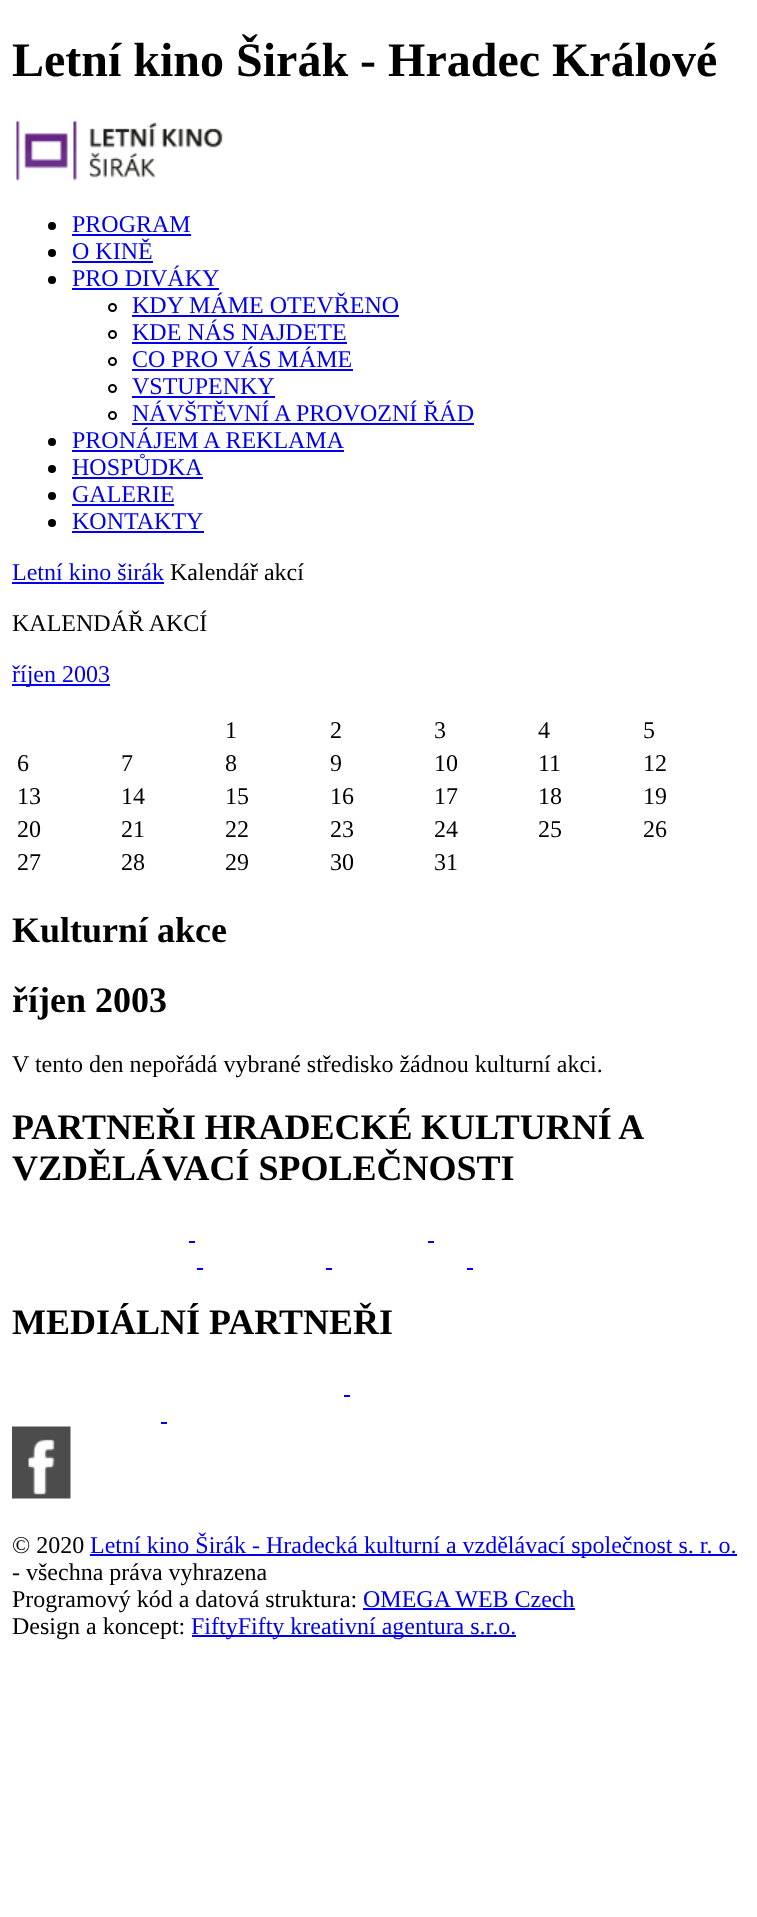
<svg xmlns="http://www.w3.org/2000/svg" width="757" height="1917">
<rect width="100%" height="100%" fill="#fff"/>
<text x="12" y="76" style="font-family:Liberation Serif;font-size:48px;font-weight:bold;fill:#000">Letní kino Širák - Hradec Králové</text>
<image x="16" y="121" width="207" height="60" href="media/1.png"/>
<circle cx="52" cy="226" r="4" fill="#000"/>
<text x="72" y="232" style="font-family:Liberation Serif;font-size:24px;fill:#00e">PROGRAM</text>
<rect x="72" y="234" width="119" height="2" fill="#00e"/>
<circle cx="52" cy="253" r="4" fill="#000"/>
<text x="72" y="259" style="font-family:Liberation Serif;font-size:24px;fill:#00e">O KINĚ</text>
<rect x="72" y="261" width="81" height="2" fill="#00e"/>
<circle cx="52" cy="280" r="4" fill="#000"/>
<text x="72" y="286" style="font-family:Liberation Serif;font-size:24px;fill:#00e">PRO DIVÁKY</text>
<rect x="72" y="288" width="147" height="2" fill="#00e"/>
<circle cx="112.5" cy="307.5" r="3.5" fill="none" stroke="#000" stroke-width="2"/>
<text x="132" y="313" style="font-family:Liberation Serif;font-size:24px;fill:#00e">KDY MÁME OTEVŘENO</text>
<rect x="132" y="315" width="267" height="2" fill="#00e"/>
<circle cx="112.5" cy="334.5" r="3.5" fill="none" stroke="#000" stroke-width="2"/>
<text x="132" y="340" style="font-family:Liberation Serif;font-size:24px;fill:#00e">KDE NÁS NAJDETE</text>
<rect x="132" y="342" width="215" height="2" fill="#00e"/>
<circle cx="112.5" cy="361.5" r="3.5" fill="none" stroke="#000" stroke-width="2"/>
<text x="132" y="367" style="font-family:Liberation Serif;font-size:24px;fill:#00e">CO PRO VÁS MÁME</text>
<rect x="132" y="369" width="221" height="2" fill="#00e"/>
<circle cx="112.5" cy="388.5" r="3.5" fill="none" stroke="#000" stroke-width="2"/>
<text x="132" y="394" style="font-family:Liberation Serif;font-size:24px;fill:#00e">VSTUPENKY</text>
<rect x="132" y="396" width="143" height="2" fill="#00e"/>
<circle cx="112.5" cy="415.5" r="3.5" fill="none" stroke="#000" stroke-width="2"/>
<text x="132" y="421" style="font-family:Liberation Serif;font-size:24px;fill:#00e">NÁVŠTĚVNÍ A PROVOZNÍ ŘÁD</text>
<rect x="132" y="423" width="342" height="2" fill="#00e"/>
<circle cx="52" cy="442" r="4" fill="#000"/>
<text x="72" y="448" style="font-family:Liberation Serif;font-size:24px;fill:#00e">PRONÁJEM A REKLAMA</text>
<rect x="72" y="450" width="272" height="2" fill="#00e"/>
<circle cx="52" cy="469" r="4" fill="#000"/>
<text x="72" y="475" style="font-family:Liberation Serif;font-size:24px;fill:#00e">HOSPŮDKA</text>
<rect x="72" y="477" width="131" height="2" fill="#00e"/>
<circle cx="52" cy="496" r="4" fill="#000"/>
<text x="72" y="502" style="font-family:Liberation Serif;font-size:24px;fill:#00e">GALERIE</text>
<rect x="72" y="504" width="102" height="2" fill="#00e"/>
<circle cx="52" cy="523" r="4" fill="#000"/>
<text x="72" y="529" style="font-family:Liberation Serif;font-size:24px;fill:#00e">KONTAKTY</text>
<rect x="72" y="531" width="132" height="2" fill="#00e"/>
<text x="12" y="580" style="font-family:Liberation Serif;font-size:24px;fill:#00e">Letní kino širák</text>
<rect x="12" y="582" width="152" height="2" fill="#00e"/>
<text x="170" y="580" style="font-family:Liberation Serif;font-size:24px;fill:#000">Kalendář akcí</text>
<text x="12" y="631" style="font-family:Liberation Serif;font-size:24px;fill:#000">KALENDÁŘ AKCÍ</text>
<rect x="12" y="684" width="98" height="2" fill="#00e"/>
<text x="12" y="682" style="font-family:Liberation Serif;font-size:24px;fill:#00e">říjen 2003</text>
<text x="225" y="738" style="font-family:Liberation Serif;font-size:24px;fill:#000">1</text>
<text x="330" y="738" style="font-family:Liberation Serif;font-size:24px;fill:#000">2</text>
<text x="434" y="738" style="font-family:Liberation Serif;font-size:24px;fill:#000">3</text>
<text x="538" y="738" style="font-family:Liberation Serif;font-size:24px;fill:#000">4</text>
<text x="643" y="738" style="font-family:Liberation Serif;font-size:24px;fill:#000">5</text>
<text x="17" y="771" style="font-family:Liberation Serif;font-size:24px;fill:#000">6</text>
<text x="121" y="771" style="font-family:Liberation Serif;font-size:24px;fill:#000">7</text>
<text x="225" y="771" style="font-family:Liberation Serif;font-size:24px;fill:#000">8</text>
<text x="330" y="771" style="font-family:Liberation Serif;font-size:24px;fill:#000">9</text>
<text x="434" y="771" style="font-family:Liberation Serif;font-size:24px;fill:#000">10</text>
<text x="538" y="771" style="font-family:Liberation Serif;font-size:24px;fill:#000">11</text>
<text x="643" y="771" style="font-family:Liberation Serif;font-size:24px;fill:#000">12</text>
<text x="17" y="804" style="font-family:Liberation Serif;font-size:24px;fill:#000">13</text>
<text x="121" y="804" style="font-family:Liberation Serif;font-size:24px;fill:#000">14</text>
<text x="225" y="804" style="font-family:Liberation Serif;font-size:24px;fill:#000">15</text>
<text x="330" y="804" style="font-family:Liberation Serif;font-size:24px;fill:#000">16</text>
<text x="434" y="804" style="font-family:Liberation Serif;font-size:24px;fill:#000">17</text>
<text x="538" y="804" style="font-family:Liberation Serif;font-size:24px;fill:#000">18</text>
<text x="643" y="804" style="font-family:Liberation Serif;font-size:24px;fill:#000">19</text>
<text x="17" y="837" style="font-family:Liberation Serif;font-size:24px;fill:#000">20</text>
<text x="121" y="837" style="font-family:Liberation Serif;font-size:24px;fill:#000">21</text>
<text x="225" y="837" style="font-family:Liberation Serif;font-size:24px;fill:#000">22</text>
<text x="330" y="837" style="font-family:Liberation Serif;font-size:24px;fill:#000">23</text>
<text x="434" y="837" style="font-family:Liberation Serif;font-size:24px;fill:#000">24</text>
<text x="538" y="837" style="font-family:Liberation Serif;font-size:24px;fill:#000">25</text>
<text x="643" y="837" style="font-family:Liberation Serif;font-size:24px;fill:#000">26</text>
<text x="17" y="870" style="font-family:Liberation Serif;font-size:24px;fill:#000">27</text>
<text x="121" y="870" style="font-family:Liberation Serif;font-size:24px;fill:#000">28</text>
<text x="225" y="870" style="font-family:Liberation Serif;font-size:24px;fill:#000">29</text>
<text x="330" y="870" style="font-family:Liberation Serif;font-size:24px;fill:#000">30</text>
<text x="434" y="870" style="font-family:Liberation Serif;font-size:24px;fill:#000">31</text>
<text x="12" y="942" style="font-family:Liberation Serif;font-size:36px;font-weight:bold;fill:#000">Kulturní akce</text>
<text x="12" y="1012" style="font-family:Liberation Serif;font-size:36px;font-weight:bold;fill:#000">říjen 2003</text>
<text x="12" y="1072" style="font-family:Liberation Serif;font-size:24px;fill:#000">V tento den nepořádá vybrané středisko žádnou kulturní akci.</text>
<text x="12" y="1139" word-spacing="-0.5" style="font-family:Liberation Serif;font-size:36px;font-weight:bold;fill:#000">PARTNEŘI HRADECKÉ KULTURNÍ A</text>
<text x="12" y="1180" style="font-family:Liberation Serif;font-size:36px;font-weight:bold;fill:#000">VZDĚLÁVACÍ SPOLEČNOSTI</text>
<rect x="189" y="1241" width="6" height="2" fill="#00e"/>
<rect x="428" y="1241" width="6" height="2" fill="#00e"/>
<rect x="197" y="1268" width="6" height="2" fill="#00e"/>
<rect x="326" y="1268" width="6" height="2" fill="#00e"/>
<rect x="467" y="1268" width="6" height="2" fill="#00e"/>
<text x="12" y="1334" style="font-family:Liberation Serif;font-size:36px;font-weight:bold;fill:#000">MEDIÁLNÍ PARTNEŘI</text>
<rect x="344" y="1395" width="6" height="2" fill="#00e"/>
<rect x="161" y="1422" width="6" height="2" fill="#00e"/>
<image x="12" y="1426" width="59" height="73" href="media/2.png"/>
<text x="12" y="1553" style="font-family:Liberation Serif;font-size:24px;fill:#000">© 2020</text>
<rect x="90" y="1554" width="647" height="2" fill="#00e"/>
<text x="90" y="1553" style="font-family:Liberation Serif;font-size:24px;fill:#00e">Letní kino Širák - Hradecká kulturní a vzdělávací společnost s. r. o.</text>
<text x="12" y="1580" style="font-family:Liberation Serif;font-size:24px;fill:#000">- všechna práva vyhrazena</text>
<text x="12" y="1607" style="font-family:Liberation Serif;font-size:24px;fill:#000">Programový kód a datová struktura:</text>
<text x="363" y="1607" style="font-family:Liberation Serif;font-size:24px;fill:#00e">OMEGA WEB Czech</text>
<rect x="363" y="1608" width="212" height="2" fill="#00e"/>
<text x="12" y="1634" style="font-family:Liberation Serif;font-size:24px;fill:#000">Design a koncept:</text>
<rect x="192" y="1635" width="324" height="2" fill="#00e"/>
<text x="191" y="1634" style="font-family:Liberation Serif;font-size:24px;fill:#00e">FiftyFifty kreativní agentura s.r.o.</text>
</svg>
